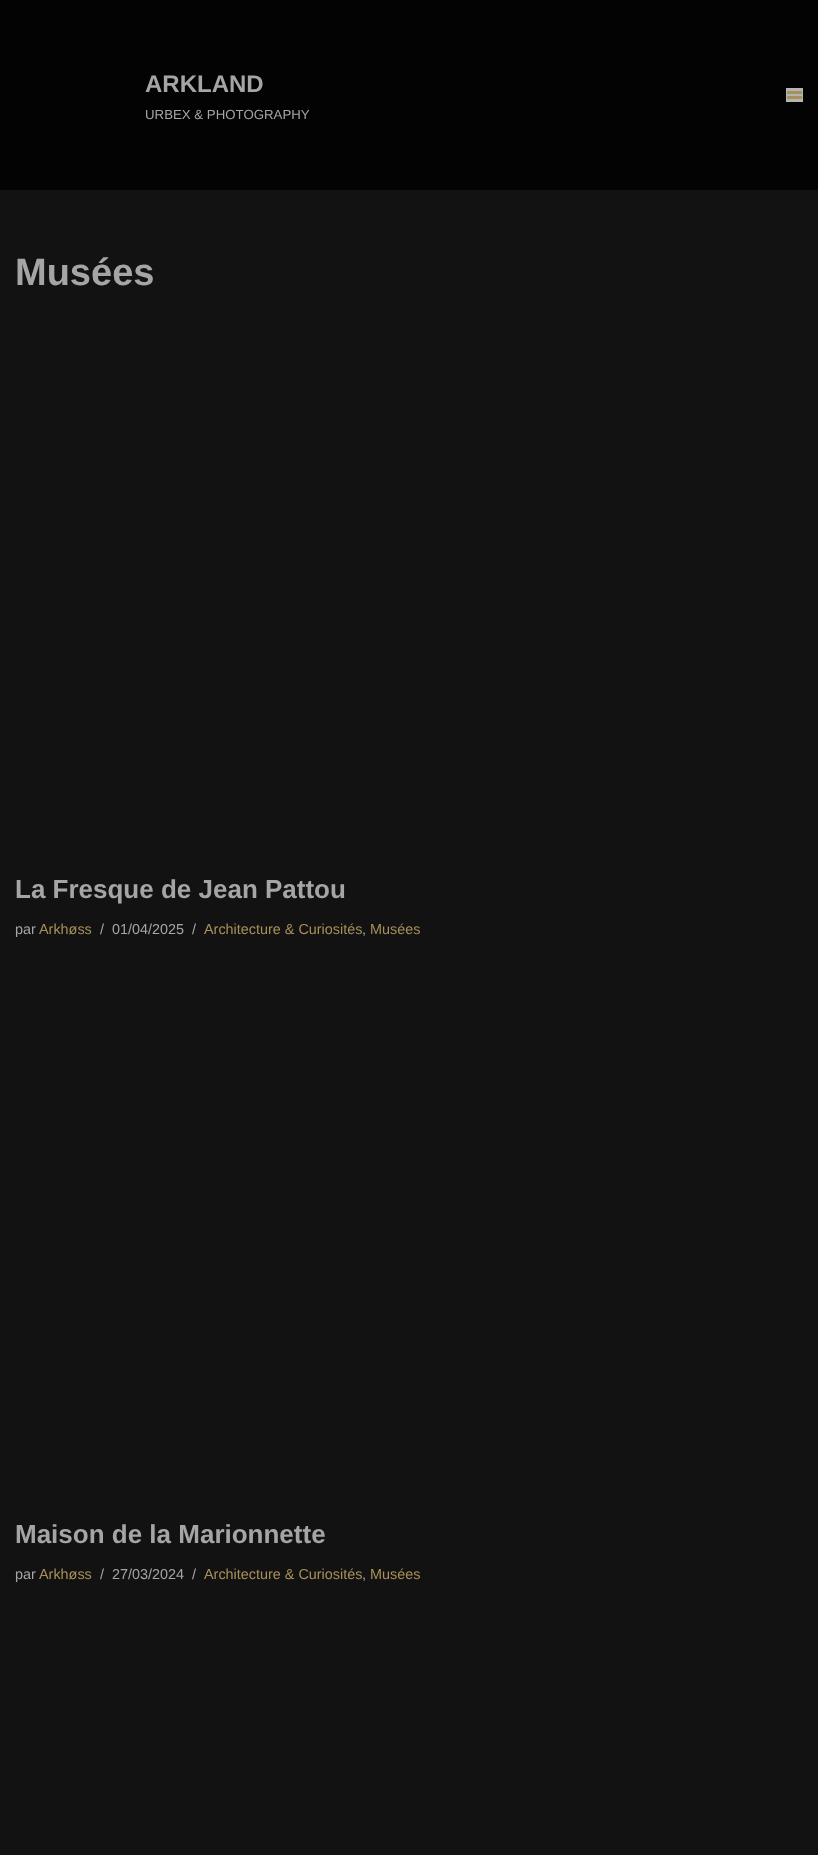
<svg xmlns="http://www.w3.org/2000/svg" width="818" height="1855">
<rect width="100%" height="100%" fill="#121212"/>
<rect width="818" height="190" fill="#030303"/>
<text x="145" y="92" style="font-family:Liberation Sans;font-size:24px;font-weight:bold;fill:#a5a5a5">ARKLAND</text>
<text x="145" y="119" style="font-family:Liberation Sans;font-size:13.25px;fill:#a5a5a5">URBEX &amp; PHOTOGRAPHY</text>
<rect x="787" y="91" width="15" height="8" fill="#a89059"/>
<rect x="786.5" y="88.5" width="16" height="13" fill="none" stroke="#b4b4b4"/>
<rect x="787" y="89" width="15" height="2" fill="#b4b4b4"/>
<rect x="787" y="94" width="15" height="2" fill="#b4b4b4"/>
<rect x="787" y="99" width="15" height="2" fill="#b4b4b4"/>
<text x="15" y="285" style="font-family:Liberation Sans;font-size:38px;font-weight:bold;fill:#a5a5a5">Musées</text>
<text x="15" y="898" style="font-family:Liberation Sans;font-size:26px;font-weight:bold;fill:#a5a5a5">La Fresque de Jean Pattou</text>
<text x="15" y="934" style="font-family:Liberation Sans;font-size:14.4px;fill:#a5a5a5">par</text>
<text x="39" y="934" style="font-family:Liberation Sans;font-size:14.4px;fill:#a89059">Arkhøss</text>
<text x="100" y="934" style="font-family:Liberation Sans;font-size:14.4px;fill:#a5a5a5">/</text>
<text x="112" y="934" style="font-family:Liberation Sans;font-size:14.4px;fill:#a5a5a5">01/04/2025</text>
<text x="192" y="934" style="font-family:Liberation Sans;font-size:14.4px;fill:#a5a5a5">/</text>
<text x="204" y="934" style="font-family:Liberation Sans;font-size:14.4px;fill:#a89059">Architecture &amp; Curiosités</text>
<text x="362" y="934" style="font-family:Liberation Sans;font-size:14.4px;fill:#a5a5a5">,</text>
<text x="370" y="934" style="font-family:Liberation Sans;font-size:14.4px;fill:#a89059">Musées</text>
<text x="15" y="1543" style="font-family:Liberation Sans;font-size:26px;font-weight:bold;fill:#a5a5a5">Maison de la Marionnette</text>
<text x="15" y="1579" style="font-family:Liberation Sans;font-size:14.4px;fill:#a5a5a5">par</text>
<text x="39" y="1579" style="font-family:Liberation Sans;font-size:14.4px;fill:#a89059">Arkhøss</text>
<text x="100" y="1579" style="font-family:Liberation Sans;font-size:14.4px;fill:#a5a5a5">/</text>
<text x="112" y="1579" style="font-family:Liberation Sans;font-size:14.4px;fill:#a5a5a5">27/03/2024</text>
<text x="192" y="1579" style="font-family:Liberation Sans;font-size:14.4px;fill:#a5a5a5">/</text>
<text x="204" y="1579" style="font-family:Liberation Sans;font-size:14.4px;fill:#a89059">Architecture &amp; Curiosités</text>
<text x="362" y="1579" style="font-family:Liberation Sans;font-size:14.4px;fill:#a5a5a5">,</text>
<text x="370" y="1579" style="font-family:Liberation Sans;font-size:14.4px;fill:#a89059">Musées</text>
</svg>
